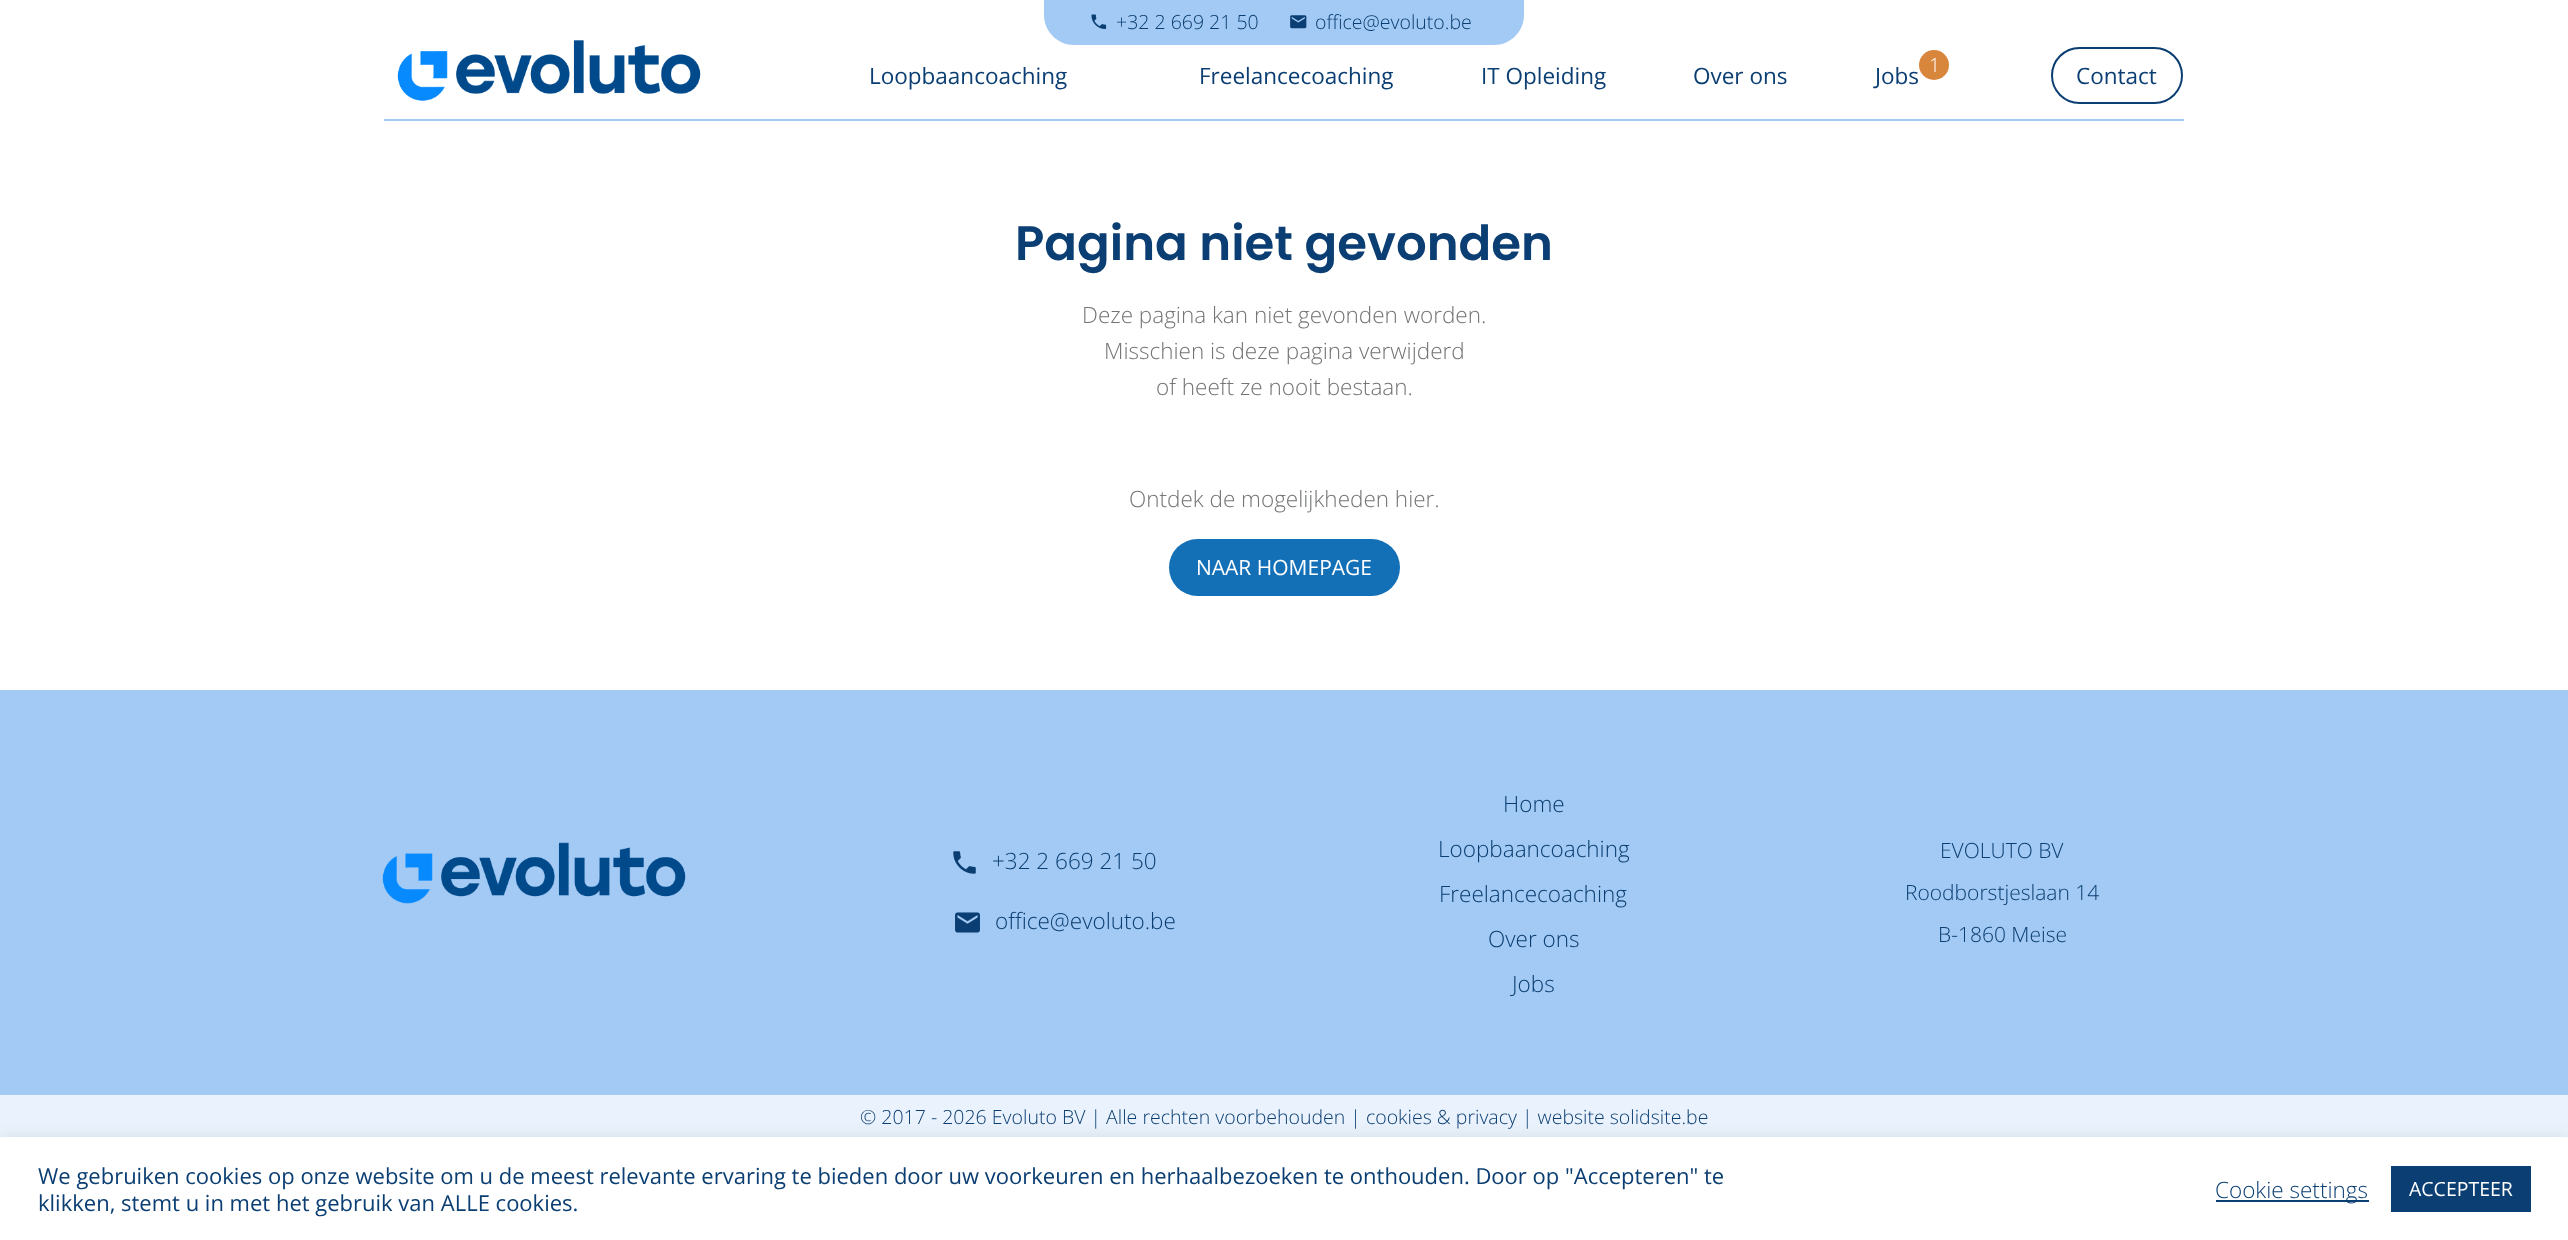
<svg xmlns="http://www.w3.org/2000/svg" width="2568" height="1240">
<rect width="100%" height="100%" fill="#fff"/>
<path d="M1044 0h480v15c0 16.5-13.5 30-30 30h-420c-16.5 0-30-13.5-30-30z" fill="#a2caf4"/>
<image x="1091" y="14" width="16" height="15" href="media/1.png"/>
<text x="1116" y="29" style="font-family:Open Sans;font-size:19.5px;font-weight:300;fill:#0b3e72">+32 2 669 21 50</text>
<image x="1290" y="15" width="17" height="14" href="media/2.png"/>
<text x="1315" y="29" style="font-family:Open Sans;font-size:19.5px;font-weight:300;fill:#0b3e72">office@evoluto.be</text>
<rect x="384" y="119" width="1800" height="2" fill="#a2caf4"/>
<image x="397" y="40" width="304" height="61" href="media/3.png"/>
<text x="869" y="84" style="font-family:Open Sans;font-size:22.5px;fill:#0b3e72">Loopbaancoaching</text>
<text x="1199" y="84" style="font-family:Open Sans;font-size:22.5px;fill:#0b3e72">Freelancecoaching</text>
<text x="1481" y="84" style="font-family:Open Sans;font-size:22.5px;fill:#0b3e72">IT Opleiding</text>
<text x="1693" y="84" style="font-family:Open Sans;font-size:22.5px;fill:#0b3e72">Over ons</text>
<text x="1875" y="84" style="font-family:Open Sans;font-size:22.5px;fill:#0b3e72">Jobs</text>
<circle cx="1934" cy="65" r="15" fill="#d9863d"/>
<text x="1929" y="72" style="font-family:Open Sans;font-size:19.5px;font-weight:300;fill:#fff">1</text>
<rect x="2052" y="48" width="130" height="55" rx="27.5" fill="none" stroke="#0b3e72" stroke-width="2"/>
<text x="2076" y="84" style="font-family:Open Sans;font-size:22.5px;fill:#0b3e72">Contact</text>
<text x="1015" y="260" style="font-family:Poppins;font-size:48.25px;font-weight:600;fill:#0b3e72">Pagina niet gevonden</text>
<text x="1082" y="323" style="font-family:Open Sans;font-size:22.5px;font-weight:300;fill:#737474">Deze pagina kan niet gevonden worden.</text>
<text x="1104" y="359" style="font-family:Open Sans;font-size:22.5px;font-weight:300;fill:#737474">Misschien is deze pagina verwijderd</text>
<text x="1156" y="395" style="font-family:Open Sans;font-size:22.5px;font-weight:300;fill:#737474">of heeft ze nooit bestaan.</text>
<text x="1129" y="507" style="font-family:Open Sans;font-size:22.5px;font-weight:300;fill:#737474">Ontdek de mogelijkheden hier.</text>
<rect x="1169" y="539" width="231" height="57" rx="28.5" fill="#1370b7"/>
<text x="1196" y="575" style="font-family:Open Sans;font-size:21px;fill:#fff">NAAR HOMEPAGE</text>
<rect y="690" width="2568" height="405" fill="#a2caf4"/>
<image x="382" y="842" width="304" height="62" href="media/4.png"/>
<image x="953" y="851" width="23" height="23" href="media/5.png"/>
<text x="992" y="869" style="font-family:Open Sans;font-size:22.5px;font-weight:300;fill:#0b3e72">+32 2 669 21 50</text>
<image x="955" y="912" width="25" height="21" href="media/6.png"/>
<text x="995" y="929" style="font-family:Open Sans;font-size:22.5px;font-weight:300;fill:#0b3e72">office@evoluto.be</text>
<text x="1503" y="812" style="font-family:Open Sans;font-size:22.5px;font-weight:300;fill:#0b3e72">Home</text>
<text x="1438" y="857" style="font-family:Open Sans;font-size:22.5px;font-weight:300;fill:#0b3e72">Loopbaancoaching</text>
<text x="1439" y="902" style="font-family:Open Sans;font-size:22.5px;font-weight:300;fill:#0b3e72">Freelancecoaching</text>
<text x="1488" y="947" style="font-family:Open Sans;font-size:22.5px;font-weight:300;fill:#0b3e72">Over ons</text>
<text x="1512" y="992" style="font-family:Open Sans;font-size:22.5px;font-weight:300;fill:#0b3e72">Jobs</text>
<text x="1940" y="858" style="font-family:Open Sans;font-size:21px;font-weight:300;fill:#0b3e72">EVOLUTO BV</text>
<text x="1905" y="900" style="font-family:Open Sans;font-size:21px;font-weight:300;fill:#0b3e72">Roodborstjeslaan 14</text>
<text x="1938" y="942" style="font-family:Open Sans;font-size:21px;font-weight:300;fill:#0b3e72">B-1860 Meise</text>
<rect y="1095" width="2568" height="42" fill="#eaf3fd"/>
<text x="860" y="1124" style="font-family:Open Sans;font-size:19.5px;font-weight:300;fill:#0b3e72">© 2017 - 2026 Evoluto BV | Alle rechten voorbehouden | cookies &amp; privacy | website solidsite.be</text>
<rect y="1136" width="2568" height="103" fill="#acabab4d" filter="blur(7.5px)"/>
<rect y="1137" width="2568" height="103" fill="#fff"/>
<text x="38" y="1184" style="font-family:Open Sans;font-size:22px;fill:#0b3e72">We gebruiken cookies op onze website om u de meest relevante ervaring te bieden door uw voorkeuren en herhaalbezoeken te onthouden. Door op "Accepteren" te</text>
<text x="38" y="1211" style="font-family:Open Sans;font-size:22px;fill:#0b3e72">klikken, stemt u in met het gebruik van ALLE cookies.</text>
<rect x="2216" y="1200" width="153" height="2" fill="#0b3e72"/>
<text x="2215" y="1198" style="font-family:Open Sans;font-size:22.5px;font-weight:300;fill:#0b3e72">Cookie settings</text>
<rect x="2391" y="1166" width="140" height="46" fill="#0b3e72"/>
<text x="2409" y="1196" style="font-family:Open Sans;font-size:19.5px;fill:#fff">ACCEPTEER</text>
</svg>
